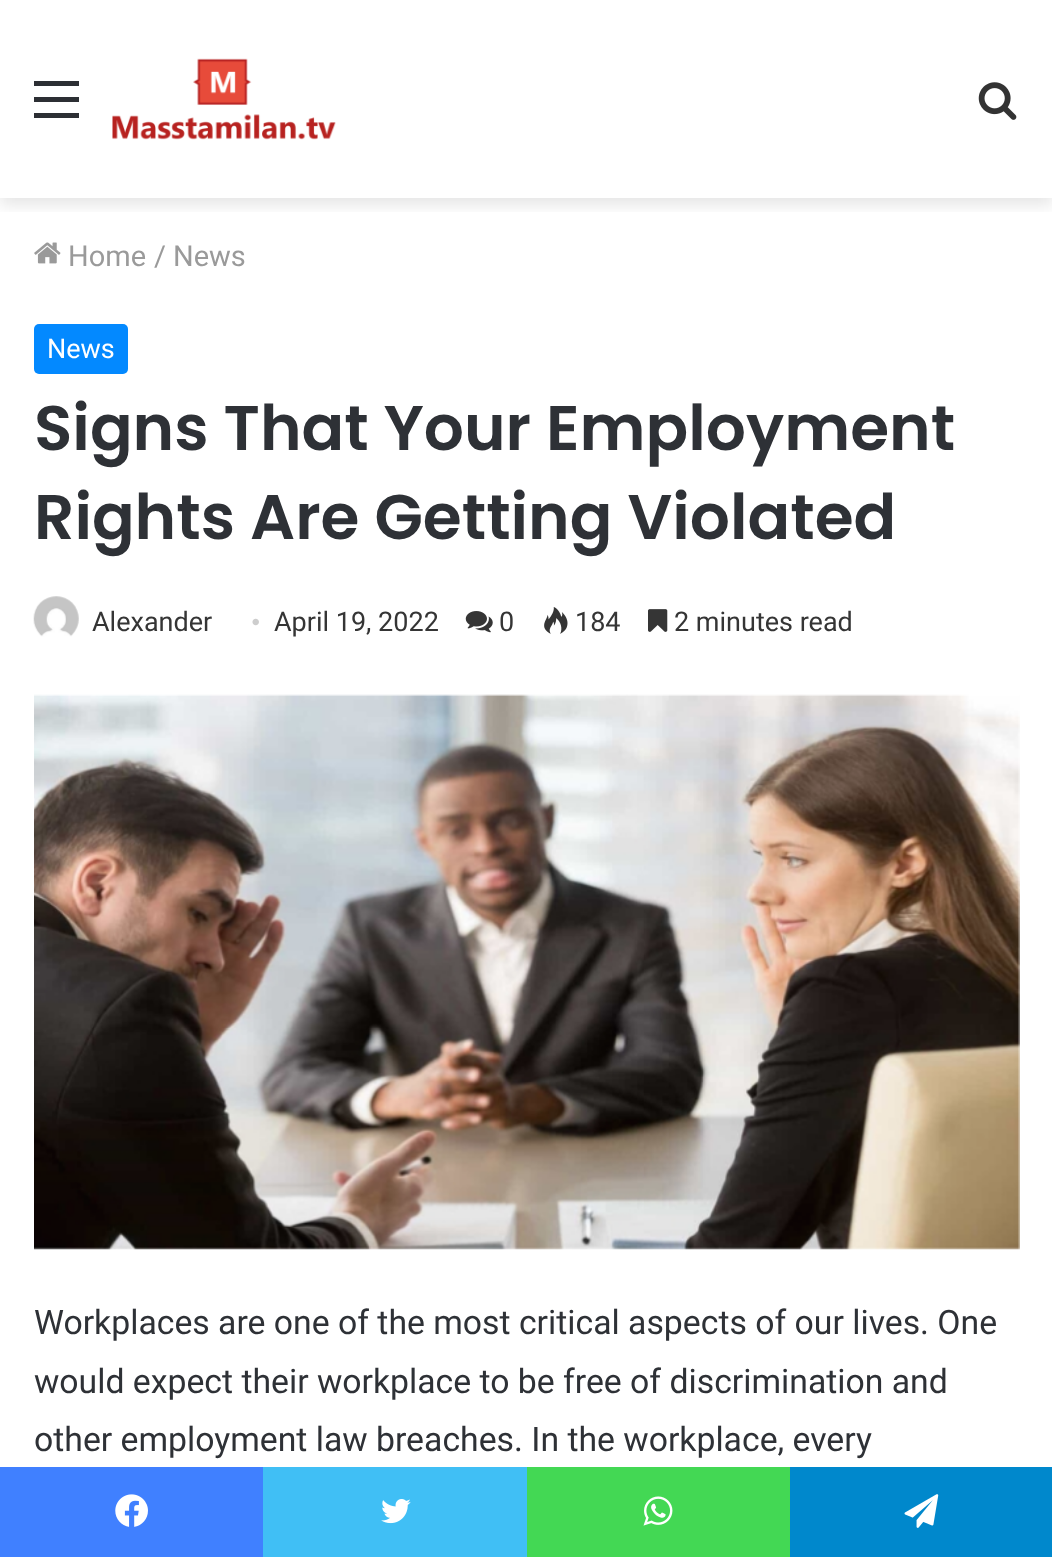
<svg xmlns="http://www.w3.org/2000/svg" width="1052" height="1557">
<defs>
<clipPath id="clip1"><rect x="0" y="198" width="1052" height="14"/></clipPath>
</defs>
<rect width="100%" height="100%" fill="#fff"/>
<g clip-path="url(#clip1)">
<rect y="7" width="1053" height="198" fill="#0000001a" filter="blur(8px)"/>
</g>
<rect x="34" y="97" width="45" height="5" fill="#2c2f34"/>
<rect x="34" y="81" width="45" height="5" fill="#2c2f34"/>
<rect x="34" y="113" width="45" height="5" fill="#2c2f34"/>
<image x="112" y="58" width="224" height="82" href="media/1.png"/>
<image x="978" y="82" width="39" height="38" href="media/2.png"/>
<image x="34" y="242" width="27" height="22" href="media/3.png"/>
<text x="68" y="266" style="font-family:Roboto;font-size:29px;fill:#9a9a9a">Home</text>
<text x="154" y="266" style="font-family:Roboto;font-size:29px;fill:#9a9a9a">/</text>
<text x="173" y="266" style="font-family:Roboto;font-size:29px;fill:#9a9a9a">News</text>
<rect x="34" y="324" width="94" height="50" rx="5" fill="#0389ff"/>
<text x="47" y="358" style="font-family:Roboto;font-size:27px;fill:#fff">News</text>
<text x="34" y="450" style="font-family:Poppins;font-size:63px;font-weight:600;fill:#2e3136">Signs That Your Employment</text>
<text x="34" y="539" style="font-family:Poppins;font-size:63px;font-weight:600;fill:#2e3136">Rights Are Getting Violated</text>
<image x="33" y="596" width="46" height="41" href="media/4.png"/>
<text x="92" y="631" style="font-family:Roboto;font-size:27px;fill:#353535">Alexander</text>
<text x="251" y="631" style="font-family:Liberation Serif;font-size:27px;fill:#cdcdcd">•</text>
<text x="274" y="631" style="font-family:Roboto;font-size:27px;fill:#353535">April 19, 2022</text>
<image x="465" y="611" width="28" height="22" href="media/5.png"/>
<text x="499" y="631" style="font-family:Roboto;font-size:27px;fill:#353535">0</text>
<image x="544" y="607" width="24" height="27" href="media/6.png"/>
<text x="575" y="631" style="font-family:Roboto;font-size:27px;fill:#353535">184</text>
<image x="648" y="609" width="20" height="23" href="media/7.png"/>
<text x="674" y="631" style="font-family:Roboto;font-size:27px;fill:#353535">2 minutes read</text>
<image x="34" y="694" width="986" height="556" href="media/8.png"/>
<text x="34" y="1334" style="font-family:Roboto;font-size:33.75px;fill:#2e3136">Workplaces are one of the most critical aspects of our lives. One</text>
<text x="34" y="1393" style="font-family:Roboto;font-size:33.75px;fill:#2e3136">would expect their workplace to be free of discrimination and</text>
<text x="34" y="1451" style="font-family:Roboto;font-size:33.75px;fill:#2e3136">other employment law breaches. In the workplace, every</text>
<rect y="1467" width="263" height="90" fill="#4080ff"/>
<image x="115" y="1494" width="33" height="33" href="media/9.png"/>
<rect x="263" y="1467" width="264" height="90" fill="#40bff5"/>
<image x="381" y="1499" width="30" height="25" href="media/10.png"/>
<rect x="527" y="1467" width="263" height="90" fill="#43d854"/>
<image x="643" y="1496" width="30" height="30" href="media/11.png"/>
<rect x="790" y="1467" width="262" height="90" fill="#08c"/>
<image x="904" y="1494" width="35" height="34" href="media/12.png"/>
</svg>
